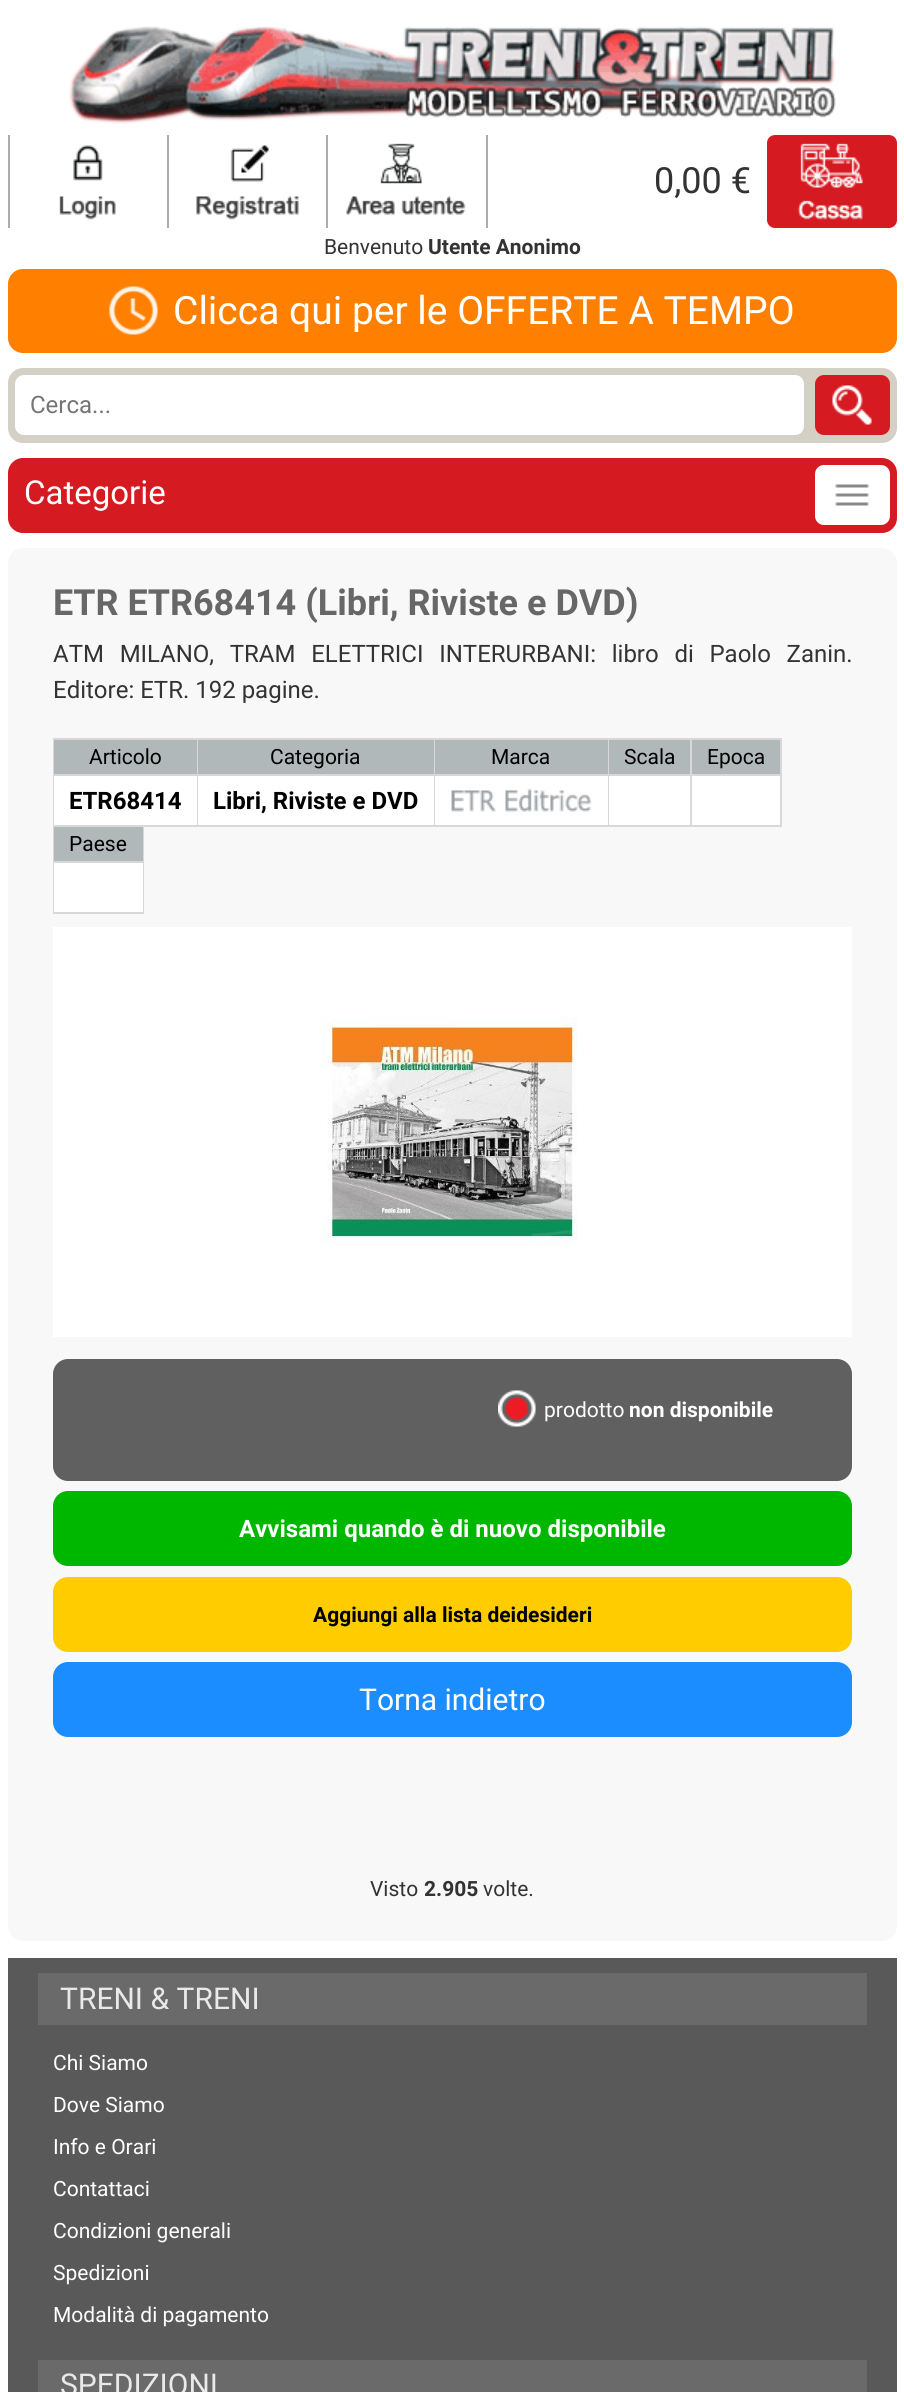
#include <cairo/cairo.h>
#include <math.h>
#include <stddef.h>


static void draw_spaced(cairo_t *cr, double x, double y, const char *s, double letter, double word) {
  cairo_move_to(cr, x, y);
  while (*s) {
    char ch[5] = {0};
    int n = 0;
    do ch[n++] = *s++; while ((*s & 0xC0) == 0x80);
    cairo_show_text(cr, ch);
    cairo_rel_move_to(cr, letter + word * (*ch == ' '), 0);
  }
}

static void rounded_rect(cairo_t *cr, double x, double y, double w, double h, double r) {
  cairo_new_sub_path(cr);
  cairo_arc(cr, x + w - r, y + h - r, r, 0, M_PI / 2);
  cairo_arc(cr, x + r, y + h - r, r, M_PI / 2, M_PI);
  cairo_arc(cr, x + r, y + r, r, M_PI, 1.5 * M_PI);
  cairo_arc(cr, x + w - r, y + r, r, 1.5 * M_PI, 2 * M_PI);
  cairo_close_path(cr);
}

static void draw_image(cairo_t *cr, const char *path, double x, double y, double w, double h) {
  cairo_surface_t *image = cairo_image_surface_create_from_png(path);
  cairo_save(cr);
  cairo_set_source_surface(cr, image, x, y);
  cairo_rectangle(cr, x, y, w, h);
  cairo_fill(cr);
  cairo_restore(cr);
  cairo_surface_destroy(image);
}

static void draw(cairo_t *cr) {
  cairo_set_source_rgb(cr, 1, 1, 1);
  cairo_paint(cr);
  draw_image(cr, "images/1.png", 69, 26, 767, 98);
  cairo_set_source_rgb(cr, 172 / 255.0, 172 / 255.0, 172 / 255.0);
  cairo_rectangle(cr, 167, 135, 2, 93);
  cairo_fill(cr);
  cairo_rectangle(cr, 8, 135, 2, 93);
  cairo_fill(cr);
  draw_image(cr, "images/2.png", 59, 145, 57, 75);
  cairo_rectangle(cr, 326, 135, 2, 93);
  cairo_fill(cr);
  draw_image(cr, "images/3.png", 196, 145, 103, 75);
  cairo_rectangle(cr, 486, 135, 2, 93);
  cairo_fill(cr);
  draw_image(cr, "images/4.png", 346, 143, 120, 72);
  cairo_set_source_rgb(cr, 214 / 255.0, 26 / 255.0, 33 / 255.0);
  rounded_rect(cr, 767, 135, 130, 93, 8);
  cairo_fill(cr);
  draw_image(cr, "images/5.png", 797, 143, 66, 77);
  cairo_set_source_rgb(cr, 1, 128 / 255.0, 0);
  rounded_rect(cr, 8, 269, 889, 84, 15);
  cairo_fill(cr);
  draw_image(cr, "images/6.png", 109, 286, 49, 49);
  cairo_set_source_rgb(cr, 213 / 255.0, 208 / 255.0, 197 / 255.0);
  rounded_rect(cr, 8, 368, 889, 75, 15);
  cairo_fill(cr);
  cairo_set_source_rgb(cr, 1, 1, 1);
  rounded_rect(cr, 15, 375, 789, 60, 9);
  cairo_fill(cr);
  cairo_set_source_rgb(cr, 214 / 255.0, 26 / 255.0, 33 / 255.0);
  rounded_rect(cr, 815, 375, 75, 60, 9);
  cairo_fill(cr);
  draw_image(cr, "images/7.png", 832, 385, 40, 40);
  rounded_rect(cr, 8, 458, 889, 75, 15);
  cairo_fill(cr);
  cairo_set_source_rgb(cr, 1, 1, 1);
  rounded_rect(cr, 815, 465, 75, 60, 9);
  cairo_fill(cr);
  draw_image(cr, "images/8.png", 835, 484, 34, 22);
  cairo_set_source_rgb(cr, 248 / 255.0, 248 / 255.0, 248 / 255.0);
  rounded_rect(cr, 8, 548, 889, 1393, 15);
  cairo_fill(cr);
  cairo_rectangle(cr, 54, 739, 143, 87);
  cairo_set_source_rgb(cr, 216 / 255.0, 216 / 255.0, 216 / 255.0);
  cairo_stroke(cr);
  cairo_set_source_rgb(cr, 177 / 255.0, 184 / 255.0, 185 / 255.0);
  cairo_rectangle(cr, 54, 740, 143, 34);
  cairo_fill(cr);
  cairo_set_source_rgb(cr, 1, 1, 1);
  cairo_rectangle(cr, 54, 776, 143, 49);
  cairo_fill(cr);
  cairo_set_source_rgb(cr, 216 / 255.0, 216 / 255.0, 216 / 255.0);
  cairo_rectangle(cr, 54, 774, 143, 2);
  cairo_fill(cr);
  cairo_rectangle(cr, 198, 739, 236, 87);
  cairo_stroke(cr);
  cairo_set_source_rgb(cr, 177 / 255.0, 184 / 255.0, 185 / 255.0);
  cairo_rectangle(cr, 198, 740, 236, 34);
  cairo_fill(cr);
  cairo_set_source_rgb(cr, 1, 1, 1);
  cairo_rectangle(cr, 198, 776, 236, 49);
  cairo_fill(cr);
  cairo_set_source_rgb(cr, 216 / 255.0, 216 / 255.0, 216 / 255.0);
  cairo_rectangle(cr, 198, 774, 236, 2);
  cairo_fill(cr);
  cairo_rectangle(cr, 435, 739, 173, 87);
  cairo_stroke(cr);
  cairo_set_source_rgb(cr, 177 / 255.0, 184 / 255.0, 185 / 255.0);
  cairo_rectangle(cr, 435, 740, 173, 34);
  cairo_fill(cr);
  cairo_set_source_rgb(cr, 1, 1, 1);
  cairo_rectangle(cr, 435, 776, 173, 49);
  cairo_fill(cr);
  cairo_set_source_rgb(cr, 216 / 255.0, 216 / 255.0, 216 / 255.0);
  cairo_rectangle(cr, 435, 774, 173, 2);
  cairo_fill(cr);
  draw_image(cr, "images/9.png", 451, 788, 141, 24);
  cairo_rectangle(cr, 609, 739, 82, 87);
  cairo_stroke(cr);
  cairo_set_source_rgb(cr, 177 / 255.0, 184 / 255.0, 185 / 255.0);
  cairo_rectangle(cr, 609, 740, 81, 34);
  cairo_fill(cr);
  cairo_set_source_rgb(cr, 1, 1, 1);
  cairo_rectangle(cr, 609, 776, 81, 49);
  cairo_fill(cr);
  cairo_set_source_rgb(cr, 216 / 255.0, 216 / 255.0, 216 / 255.0);
  cairo_rectangle(cr, 609, 774, 81, 2);
  cairo_fill(cr);
  cairo_rectangle(cr, 691, 739, 90, 87);
  cairo_stroke(cr);
  cairo_set_source_rgb(cr, 177 / 255.0, 184 / 255.0, 185 / 255.0);
  cairo_rectangle(cr, 692, 740, 88, 34);
  cairo_fill(cr);
  cairo_set_source_rgb(cr, 1, 1, 1);
  cairo_rectangle(cr, 692, 776, 88, 49);
  cairo_fill(cr);
  cairo_set_source_rgb(cr, 216 / 255.0, 216 / 255.0, 216 / 255.0);
  cairo_rectangle(cr, 692, 774, 88, 2);
  cairo_fill(cr);
  cairo_rectangle(cr, 54, 826, 89, 87);
  cairo_stroke(cr);
  cairo_set_source_rgb(cr, 177 / 255.0, 184 / 255.0, 185 / 255.0);
  cairo_rectangle(cr, 54, 827, 89, 34);
  cairo_fill(cr);
  cairo_set_source_rgb(cr, 1, 1, 1);
  cairo_rectangle(cr, 54, 863, 89, 49);
  cairo_fill(cr);
  cairo_set_source_rgb(cr, 216 / 255.0, 216 / 255.0, 216 / 255.0);
  cairo_rectangle(cr, 54, 861, 89, 2);
  cairo_fill(cr);
  cairo_set_source_rgb(cr, 1, 1, 1);
  cairo_rectangle(cr, 53, 927, 799, 410);
  cairo_fill(cr);
  draw_image(cr, "images/10.png", 321, 1016, 256, 230);
  cairo_set_source_rgb(cr, 96 / 255.0, 96 / 255.0, 96 / 255.0);
  rounded_rect(cr, 53, 1359, 799, 122, 15);
  cairo_fill(cr);
  draw_image(cr, "images/11.png", 498, 1390, 38, 37);
  cairo_set_source_rgb(cr, 0, 183 / 255.0, 0);
  rounded_rect(cr, 53, 1491, 799, 75, 15);
  cairo_fill(cr);
  cairo_set_source_rgb(cr, 1, 204 / 255.0, 0);
  rounded_rect(cr, 53, 1577, 799, 75, 15);
  cairo_fill(cr);
  cairo_set_source_rgb(cr, 28 / 255.0, 141 / 255.0, 1);
  rounded_rect(cr, 53, 1662, 799, 75, 15);
  cairo_fill(cr);
  cairo_set_source_rgb(cr, 89 / 255.0, 89 / 255.0, 89 / 255.0);
  cairo_rectangle(cr, 8, 1958, 889, 434);
  cairo_fill(cr);
  cairo_set_source_rgb(cr, 106 / 255.0, 106 / 255.0, 106 / 255.0);
  cairo_rectangle(cr, 38, 1973, 829, 52);
  cairo_fill(cr);
  cairo_rectangle(cr, 38, 2360, 829, 32);
  cairo_fill(cr);
  cairo_select_font_face(cr, "Roboto", CAIRO_FONT_SLANT_NORMAL, CAIRO_FONT_WEIGHT_NORMAL);
  cairo_set_font_size(cr, 36);
  cairo_set_source_rgb(cr, 51 / 255.0, 51 / 255.0, 51 / 255.0);
  cairo_move_to(cr, 654, 193);
  cairo_show_text(cr, "0,00 €");
  cairo_set_font_size(cr, 21);
  cairo_move_to(cr, 324, 254);
  cairo_show_text(cr, "Benvenuto");
  cairo_select_font_face(cr, "Roboto", CAIRO_FONT_SLANT_NORMAL, CAIRO_FONT_WEIGHT_BOLD);
  cairo_move_to(cr, 428, 254);
  cairo_show_text(cr, "Utente Anonimo");
  cairo_select_font_face(cr, "Roboto", CAIRO_FONT_SLANT_NORMAL, CAIRO_FONT_WEIGHT_NORMAL);
  cairo_set_font_size(cr, 39);
  cairo_set_source_rgb(cr, 1, 1, 1);
  cairo_move_to(cr, 173, 324);
  cairo_show_text(cr, "Clicca qui per le OFFERTE A TEMPO");
  cairo_set_font_size(cr, 24);
  cairo_set_source_rgb(cr, 117 / 255.0, 117 / 255.0, 117 / 255.0);
  cairo_move_to(cr, 30, 413);
  cairo_show_text(cr, "Cerca...");
  cairo_set_font_size(cr, 33);
  cairo_set_source_rgb(cr, 1, 1, 1);
  cairo_move_to(cr, 24, 504);
  cairo_show_text(cr, "Categorie");
  cairo_select_font_face(cr, "Roboto", CAIRO_FONT_SLANT_NORMAL, CAIRO_FONT_WEIGHT_BOLD);
  cairo_set_font_size(cr, 36);
  cairo_set_source_rgb(cr, 103 / 255.0, 103 / 255.0, 103 / 255.0);
  cairo_move_to(cr, 53, 615);
  cairo_show_text(cr, "ETR ETR68414 (Libri, Riviste e DVD)");
  cairo_select_font_face(cr, "Roboto", CAIRO_FONT_SLANT_NORMAL, CAIRO_FONT_WEIGHT_NORMAL);
  cairo_set_font_size(cr, 24);
  cairo_set_source_rgb(cr, 51 / 255.0, 51 / 255.0, 51 / 255.0);
  draw_spaced(cr, 53, 662, "ATM MILANO, TRAM ELETTRICI INTERURBANI: libro di Paolo Zanin.", 0, 9.75);
  cairo_move_to(cr, 53, 698);
  cairo_show_text(cr, "Editore: ETR. 192 pagine.");
  cairo_set_font_size(cr, 21);
  cairo_set_source_rgb(cr, 0, 0, 0);
  cairo_move_to(cr, 89, 764);
  cairo_show_text(cr, "Articolo");
  cairo_select_font_face(cr, "Roboto", CAIRO_FONT_SLANT_NORMAL, CAIRO_FONT_WEIGHT_BOLD);
  cairo_set_font_size(cr, 24);
  cairo_move_to(cr, 69, 809);
  cairo_show_text(cr, "ETR68414");
  cairo_select_font_face(cr, "Roboto", CAIRO_FONT_SLANT_NORMAL, CAIRO_FONT_WEIGHT_NORMAL);
  cairo_set_font_size(cr, 21);
  cairo_move_to(cr, 270, 764);
  cairo_show_text(cr, "Categoria");
  cairo_select_font_face(cr, "Roboto", CAIRO_FONT_SLANT_NORMAL, CAIRO_FONT_WEIGHT_BOLD);
  cairo_set_font_size(cr, 24);
  cairo_move_to(cr, 213, 809);
  cairo_show_text(cr, "Libri, Riviste e DVD");
  cairo_select_font_face(cr, "Roboto", CAIRO_FONT_SLANT_NORMAL, CAIRO_FONT_WEIGHT_NORMAL);
  cairo_set_font_size(cr, 21);
  cairo_move_to(cr, 491, 764);
  cairo_show_text(cr, "Marca");
  cairo_move_to(cr, 624, 764);
  cairo_show_text(cr, "Scala");
  cairo_move_to(cr, 707, 764);
  cairo_show_text(cr, "Epoca");
  cairo_move_to(cr, 69, 851);
  cairo_show_text(cr, "Paese");
  cairo_set_source_rgb(cr, 1, 1, 1);
  cairo_move_to(cr, 544, 1417);
  cairo_show_text(cr, "prodotto");
  cairo_select_font_face(cr, "Roboto", CAIRO_FONT_SLANT_NORMAL, CAIRO_FONT_WEIGHT_BOLD);
  cairo_move_to(cr, 629, 1417);
  cairo_show_text(cr, "non disponibile");
  cairo_set_font_size(cr, 24);
  cairo_move_to(cr, 239, 1537);
  cairo_show_text(cr, "Avvisami quando è di nuovo disponibile");
  cairo_set_font_size(cr, 21);
  cairo_set_source_rgb(cr, 0, 0, 0);
  cairo_move_to(cr, 313, 1622);
  cairo_show_text(cr, "Aggiungi alla lista deidesideri");
  cairo_select_font_face(cr, "Roboto", CAIRO_FONT_SLANT_NORMAL, CAIRO_FONT_WEIGHT_NORMAL);
  cairo_set_font_size(cr, 30);
  cairo_set_source_rgb(cr, 1, 1, 1);
  cairo_move_to(cr, 359, 1710);
  cairo_show_text(cr, "Torna indietro");
  cairo_set_font_size(cr, 21);
  cairo_set_source_rgb(cr, 51 / 255.0, 51 / 255.0, 51 / 255.0);
  cairo_move_to(cr, 370, 1896);
  cairo_show_text(cr, "Visto");
  cairo_select_font_face(cr, "Roboto", CAIRO_FONT_SLANT_NORMAL, CAIRO_FONT_WEIGHT_BOLD);
  cairo_move_to(cr, 424, 1896);
  cairo_show_text(cr, "2.905");
  cairo_select_font_face(cr, "Roboto", CAIRO_FONT_SLANT_NORMAL, CAIRO_FONT_WEIGHT_NORMAL);
  cairo_move_to(cr, 483, 1896);
  cairo_show_text(cr, "volte.");
  cairo_set_font_size(cr, 30);
  cairo_set_source_rgb(cr, 233 / 255.0, 233 / 255.0, 233 / 255.0);
  cairo_move_to(cr, 60, 2009);
  cairo_show_text(cr, "TRENI & TRENI");
  cairo_set_font_size(cr, 21);
  cairo_set_source_rgb(cr, 1, 1, 1);
  cairo_move_to(cr, 53, 2070);
  cairo_show_text(cr, "Chi Siamo");
  cairo_move_to(cr, 53, 2112);
  cairo_show_text(cr, "Dove Siamo");
  cairo_move_to(cr, 53, 2154);
  cairo_show_text(cr, "Info e Orari");
  cairo_move_to(cr, 53, 2196);
  cairo_show_text(cr, "Contattaci");
  cairo_move_to(cr, 53, 2238);
  cairo_show_text(cr, "Condizioni generali");
  cairo_move_to(cr, 53, 2280);
  cairo_show_text(cr, "Spedizioni");
  cairo_move_to(cr, 53, 2322);
  cairo_show_text(cr, "Modalità di pagamento");
  cairo_set_font_size(cr, 30);
  cairo_set_source_rgb(cr, 233 / 255.0, 233 / 255.0, 233 / 255.0);
  cairo_move_to(cr, 60, 2395);
  cairo_show_text(cr, "SPEDIZIONI");
}

int main(void) {
  cairo_surface_t *surface = cairo_image_surface_create(CAIRO_FORMAT_RGB24, 904, 2392);
  cairo_t *cr = cairo_create(surface);
  cairo_font_options_t *options = cairo_font_options_create();
  cairo_font_options_set_hint_metrics(options, CAIRO_HINT_METRICS_OFF);
  cairo_font_options_set_hint_style(options, CAIRO_HINT_STYLE_NONE);
  cairo_set_font_options(cr, options);
  cairo_set_miter_limit(cr, 4);
  draw(cr);
  cairo_surface_write_to_png(surface, "out.png");
  cairo_font_options_destroy(options);
  cairo_destroy(cr);
  cairo_surface_destroy(surface);
  return 0;
}
